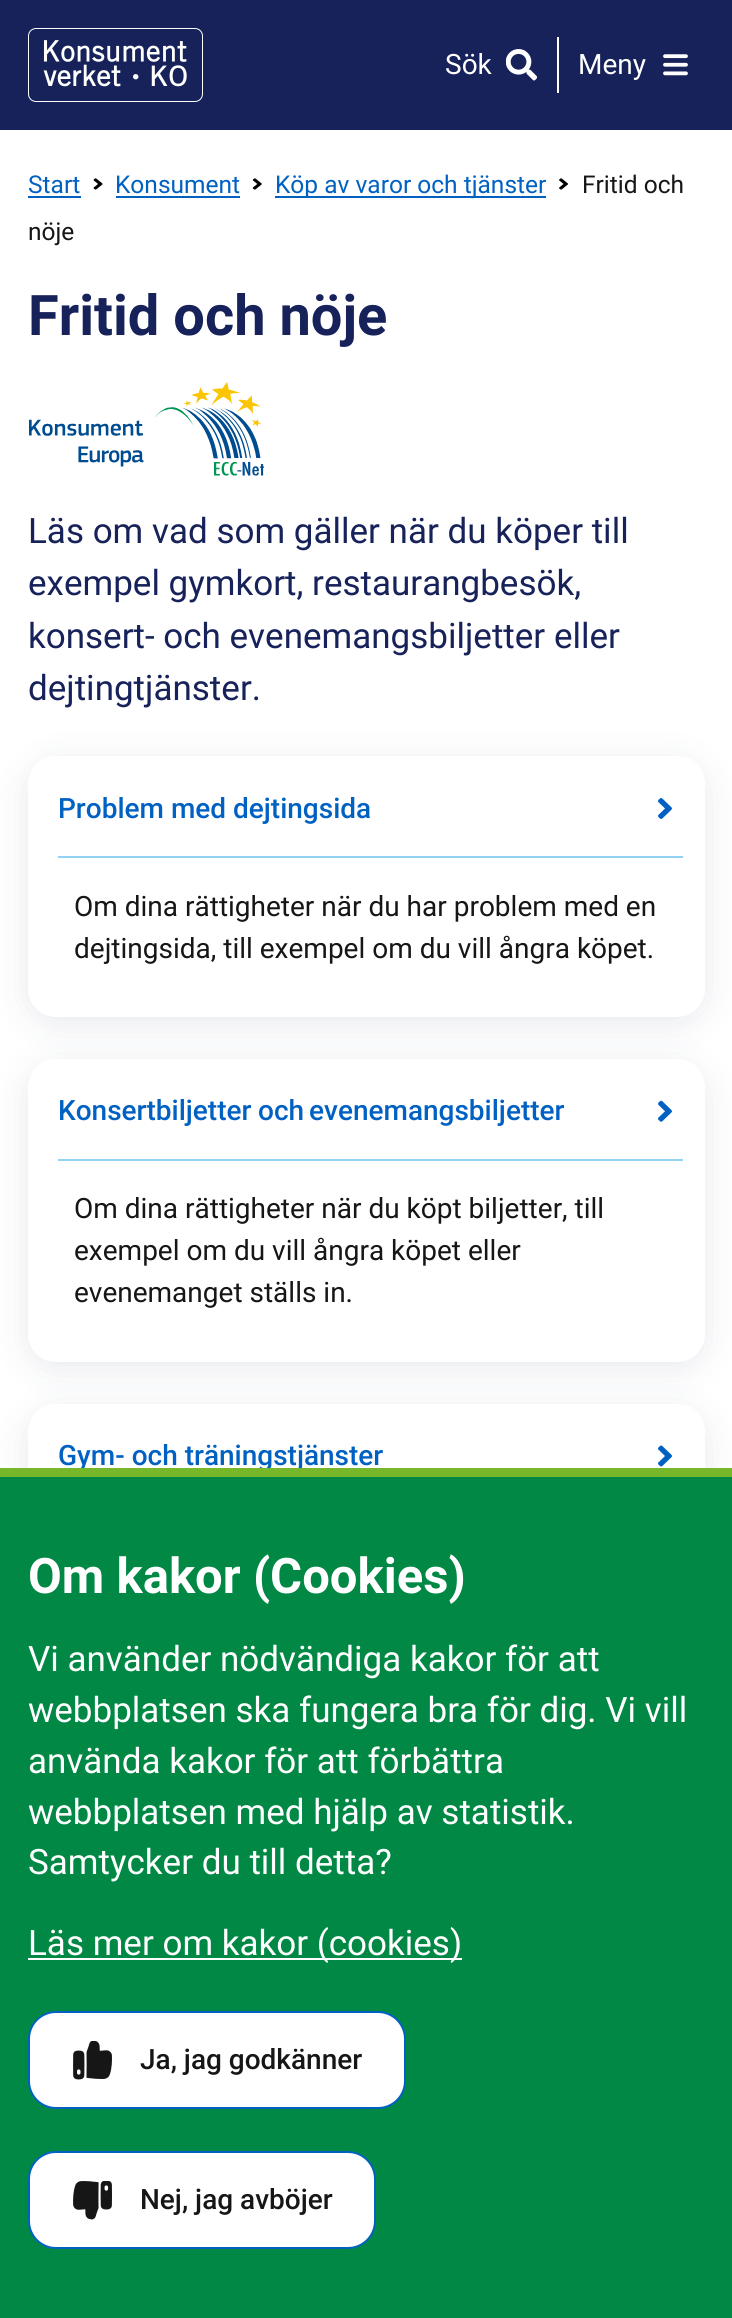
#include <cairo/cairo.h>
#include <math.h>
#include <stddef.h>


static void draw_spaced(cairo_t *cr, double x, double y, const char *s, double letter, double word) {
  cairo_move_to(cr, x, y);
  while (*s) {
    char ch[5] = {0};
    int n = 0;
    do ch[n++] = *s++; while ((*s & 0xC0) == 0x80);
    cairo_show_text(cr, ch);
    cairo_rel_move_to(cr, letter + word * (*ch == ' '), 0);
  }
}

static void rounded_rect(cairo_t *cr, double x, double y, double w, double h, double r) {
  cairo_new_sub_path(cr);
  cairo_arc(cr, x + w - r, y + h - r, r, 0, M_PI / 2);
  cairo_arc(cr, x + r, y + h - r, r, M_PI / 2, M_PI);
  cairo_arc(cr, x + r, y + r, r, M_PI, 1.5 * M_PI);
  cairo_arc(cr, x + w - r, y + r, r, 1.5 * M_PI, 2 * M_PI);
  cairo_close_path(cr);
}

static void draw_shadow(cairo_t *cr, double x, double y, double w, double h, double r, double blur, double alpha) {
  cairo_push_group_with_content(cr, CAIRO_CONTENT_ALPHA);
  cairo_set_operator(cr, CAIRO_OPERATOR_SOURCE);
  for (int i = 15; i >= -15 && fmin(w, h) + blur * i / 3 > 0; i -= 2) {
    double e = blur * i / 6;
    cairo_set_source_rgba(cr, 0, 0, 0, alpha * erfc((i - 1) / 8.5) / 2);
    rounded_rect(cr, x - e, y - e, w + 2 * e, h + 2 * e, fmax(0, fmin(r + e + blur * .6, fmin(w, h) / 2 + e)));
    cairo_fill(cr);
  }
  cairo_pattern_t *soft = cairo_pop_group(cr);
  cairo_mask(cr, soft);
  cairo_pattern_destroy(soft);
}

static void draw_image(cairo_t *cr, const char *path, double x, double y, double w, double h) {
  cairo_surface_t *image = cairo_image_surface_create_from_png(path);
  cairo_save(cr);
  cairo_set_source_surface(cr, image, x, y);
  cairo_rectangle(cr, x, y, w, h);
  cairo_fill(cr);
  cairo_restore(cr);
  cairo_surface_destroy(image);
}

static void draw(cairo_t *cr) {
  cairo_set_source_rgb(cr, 1, 1, 1);
  cairo_paint(cr);
  cairo_set_source_rgb(cr, 22 / 255.0, 34 / 255.0, 89 / 255.0);
  cairo_rectangle(cr, 0, 0, 732, 130);
  cairo_fill(cr);
  draw_image(cr, "images/1.png", 28, 28, 175, 74);
  draw_image(cr, "images/2.png", 506, 49, 31, 32);
  cairo_set_source_rgb(cr, 1, 1, 1);
  cairo_rectangle(cr, 557, 37, 2, 56);
  cairo_fill(cr);
  draw_image(cr, "images/3.png", 663, 54, 25, 22);
  cairo_set_source_rgb(cr, 0, 97 / 255.0, 194 / 255.0);
  cairo_rectangle(cr, 28, 196, 53, 2);
  cairo_fill(cr);
  draw_image(cr, "images/4.png", 93, 178, 10, 12);
  cairo_rectangle(cr, 116, 196, 124, 2);
  cairo_fill(cr);
  draw_image(cr, "images/5.png", 252, 178, 10, 12);
  cairo_rectangle(cr, 275, 196, 271, 2);
  cairo_fill(cr);
  draw_image(cr, "images/6.png", 559, 178, 9, 12);
  draw_image(cr, "images/7.png", 29, 382, 235, 94);
  cairo_set_source_rgb(cr, 22 / 255.0, 34 / 255.0, 89 / 255.0);
  draw_shadow(cr, 28, 763, 677, 261, 28, 17.5, 0.1);
  cairo_set_source_rgb(cr, 1, 1, 1);
  rounded_rect(cr, 29, 757, 675, 259, 27);
  cairo_fill_preserve(cr);
  cairo_stroke(cr);
  draw_image(cr, "images/8.png", 658, 798, 14, 21);
  cairo_set_source_rgb(cr, 146 / 255.0, 210 / 255.0, 244 / 255.0);
  cairo_rectangle(cr, 58, 856, 625, 2);
  cairo_fill(cr);
  cairo_set_source_rgb(cr, 22 / 255.0, 34 / 255.0, 89 / 255.0);
  draw_shadow(cr, 28, 1066, 677, 303, 28, 17.5, 0.1);
  cairo_set_source_rgb(cr, 1, 1, 1);
  rounded_rect(cr, 29, 1060, 675, 301, 27);
  cairo_fill_preserve(cr);
  cairo_stroke(cr);
  draw_image(cr, "images/9.png", 658, 1100, 14, 22);
  cairo_set_source_rgb(cr, 146 / 255.0, 210 / 255.0, 244 / 255.0);
  cairo_rectangle(cr, 58, 1159, 625, 2);
  cairo_fill(cr);
  cairo_set_source_rgb(cr, 22 / 255.0, 34 / 255.0, 89 / 255.0);
  draw_shadow(cr, 28, 1411, 677, 302, 28, 17.5, 0.1);
  cairo_set_source_rgb(cr, 1, 1, 1);
  rounded_rect(cr, 28, 1404, 677, 302, 28);
  cairo_fill(cr);
  draw_image(cr, "images/10.png", 658, 1445, 14, 22);
  cairo_set_source_rgb(cr, 0, 136 / 255.0, 68 / 255.0);
  cairo_rectangle(cr, 0, 1477, 732, 841);
  cairo_fill(cr);
  cairo_set_source_rgb(cr, 1, 1, 1);
  cairo_rectangle(cr, 28, 1958, 434, 2);
  cairo_fill(cr);
  rounded_rect(cr, 29, 2012, 376, 96, 27);
  cairo_fill_preserve(cr);
  cairo_set_source_rgb(cr, 0, 97 / 255.0, 194 / 255.0);
  cairo_stroke(cr);
  draw_image(cr, "images/11.png", 73, 2041, 39, 39);
  cairo_set_source_rgb(cr, 1, 1, 1);
  rounded_rect(cr, 29, 2152, 346, 96, 27);
  cairo_fill_preserve(cr);
  cairo_set_source_rgb(cr, 0, 97 / 255.0, 194 / 255.0);
  cairo_stroke(cr);
  draw_image(cr, "images/12.png", 73, 2181, 39, 39);
  cairo_select_font_face(cr, "Roboto", CAIRO_FONT_SLANT_NORMAL, CAIRO_FONT_WEIGHT_NORMAL);
  cairo_set_font_size(cr, 28);
  cairo_set_source_rgb(cr, 1, 1, 1);
  cairo_move_to(cr, 445, 74);
  cairo_show_text(cr, "Sök");
  cairo_move_to(cr, 578, 74);
  cairo_show_text(cr, "Meny");
  cairo_set_font_size(cr, 24.5);
  cairo_set_source_rgb(cr, 0, 97 / 255.0, 194 / 255.0);
  cairo_move_to(cr, 28, 193);
  cairo_show_text(cr, "Start");
  cairo_move_to(cr, 115, 193);
  cairo_show_text(cr, "Konsument");
  cairo_move_to(cr, 275, 193);
  cairo_show_text(cr, "Köp av varor och tjänster");
  cairo_set_source_rgb(cr, 22 / 255.0, 22 / 255.0, 22 / 255.0);
  cairo_move_to(cr, 582, 193);
  cairo_show_text(cr, "Fritid och");
  cairo_move_to(cr, 28, 240);
  cairo_show_text(cr, "nöje");
  cairo_select_font_face(cr, "Roboto", CAIRO_FONT_SLANT_NORMAL, CAIRO_FONT_WEIGHT_BOLD);
  cairo_set_font_size(cr, 56);
  cairo_set_source_rgb(cr, 22 / 255.0, 34 / 255.0, 89 / 255.0);
  cairo_move_to(cr, 28, 335);
  cairo_show_text(cr, "Fritid och nöje");
  cairo_select_font_face(cr, "Roboto", CAIRO_FONT_SLANT_NORMAL, CAIRO_FONT_WEIGHT_NORMAL);
  cairo_set_font_size(cr, 35);
  cairo_move_to(cr, 28, 543);
  cairo_show_text(cr, "Läs om vad som gäller när du köper till");
  cairo_move_to(cr, 28, 595);
  cairo_show_text(cr, "exempel gymkort, restaurangbesök,");
  cairo_move_to(cr, 28, 648);
  cairo_show_text(cr, "konsert- och evenemangsbiljetter eller");
  cairo_move_to(cr, 28, 700);
  cairo_show_text(cr, "dejtingtjänster.");
  cairo_select_font_face(cr, "Roboto Medium", CAIRO_FONT_SLANT_NORMAL, CAIRO_FONT_WEIGHT_NORMAL);
  cairo_set_font_size(cr, 28);
  cairo_set_source_rgb(cr, 0, 97 / 255.0, 194 / 255.0);
  cairo_move_to(cr, 58, 818);
  cairo_show_text(cr, "Problem med dejtingsida");
  cairo_select_font_face(cr, "Roboto", CAIRO_FONT_SLANT_NORMAL, CAIRO_FONT_WEIGHT_NORMAL);
  cairo_set_source_rgb(cr, 22 / 255.0, 22 / 255.0, 22 / 255.0);
  cairo_move_to(cr, 74, 916);
  cairo_show_text(cr, "Om dina rättigheter när du har problem med en");
  cairo_move_to(cr, 74, 958);
  cairo_show_text(cr, "dejtingsida, till exempel om du vill ångra köpet.");
  cairo_select_font_face(cr, "Roboto Medium", CAIRO_FONT_SLANT_NORMAL, CAIRO_FONT_WEIGHT_NORMAL);
  cairo_set_source_rgb(cr, 0, 97 / 255.0, 194 / 255.0);
  cairo_move_to(cr, 58, 1120);
  cairo_show_text(cr, "Konsertbiljetter");
  draw_spaced(cr, 258, 1120, "och evenemangsbiljetter", 0, -2);
  cairo_select_font_face(cr, "Roboto", CAIRO_FONT_SLANT_NORMAL, CAIRO_FONT_WEIGHT_NORMAL);
  cairo_set_source_rgb(cr, 22 / 255.0, 22 / 255.0, 22 / 255.0);
  cairo_move_to(cr, 74, 1218);
  cairo_show_text(cr, "Om dina rättigheter när du köpt biljetter, till");
  cairo_move_to(cr, 74, 1260);
  cairo_show_text(cr, "exempel om du vill ångra köpet eller");
  cairo_move_to(cr, 74, 1302);
  cairo_show_text(cr, "evenemanget ställs in.");
  cairo_select_font_face(cr, "Roboto Medium", CAIRO_FONT_SLANT_NORMAL, CAIRO_FONT_WEIGHT_NORMAL);
  cairo_set_source_rgb(cr, 0, 97 / 255.0, 194 / 255.0);
  cairo_move_to(cr, 58, 1465);
  cairo_show_text(cr, "Gym- och träningstjänster");
  cairo_set_source_rgb(cr, 118 / 255.0, 184 / 255.0, 42 / 255.0);
  cairo_rectangle(cr, 0, 1468, 732, 9);
  cairo_fill(cr);
  cairo_select_font_face(cr, "Roboto", CAIRO_FONT_SLANT_NORMAL, CAIRO_FONT_WEIGHT_BOLD);
  cairo_set_font_size(cr, 49);
  cairo_set_source_rgb(cr, 1, 1, 1);
  cairo_move_to(cr, 28, 1593);
  cairo_show_text(cr, "Om kakor (Cookies)");
  cairo_select_font_face(cr, "Roboto", CAIRO_FONT_SLANT_NORMAL, CAIRO_FONT_WEIGHT_NORMAL);
  cairo_set_font_size(cr, 35);
  cairo_move_to(cr, 28, 1671);
  cairo_show_text(cr, "Vi använder nödvändiga kakor för att");
  cairo_move_to(cr, 28, 1722);
  cairo_show_text(cr, "webbplatsen ska fungera bra för dig. Vi vill");
  cairo_move_to(cr, 28, 1773);
  cairo_show_text(cr, "använda kakor för att förbättra");
  cairo_move_to(cr, 28, 1824);
  cairo_show_text(cr, "webbplatsen med hjälp av statistik.");
  cairo_move_to(cr, 28, 1874);
  cairo_show_text(cr, "Samtycker du till detta?");
  cairo_move_to(cr, 28, 1955);
  cairo_show_text(cr, "Läs mer om kakor (cookies)");
  cairo_select_font_face(cr, "Roboto Medium", CAIRO_FONT_SLANT_NORMAL, CAIRO_FONT_WEIGHT_NORMAL);
  cairo_set_font_size(cr, 28);
  cairo_set_source_rgb(cr, 22 / 255.0, 22 / 255.0, 22 / 255.0);
  cairo_move_to(cr, 140, 2069);
  cairo_show_text(cr, "Ja, jag godkänner");
  cairo_move_to(cr, 140, 2209);
  cairo_show_text(cr, "Nej, jag avböjer");
}

int main(void) {
  cairo_surface_t *surface = cairo_image_surface_create(CAIRO_FORMAT_RGB24, 732, 2318);
  cairo_t *cr = cairo_create(surface);
  cairo_font_options_t *options = cairo_font_options_create();
  cairo_font_options_set_hint_metrics(options, CAIRO_HINT_METRICS_OFF);
  cairo_font_options_set_hint_style(options, CAIRO_HINT_STYLE_NONE);
  cairo_set_font_options(cr, options);
  cairo_set_miter_limit(cr, 4);
  draw(cr);
  cairo_surface_write_to_png(surface, "out.png");
  cairo_font_options_destroy(options);
  cairo_destroy(cr);
  cairo_surface_destroy(surface);
  return 0;
}
